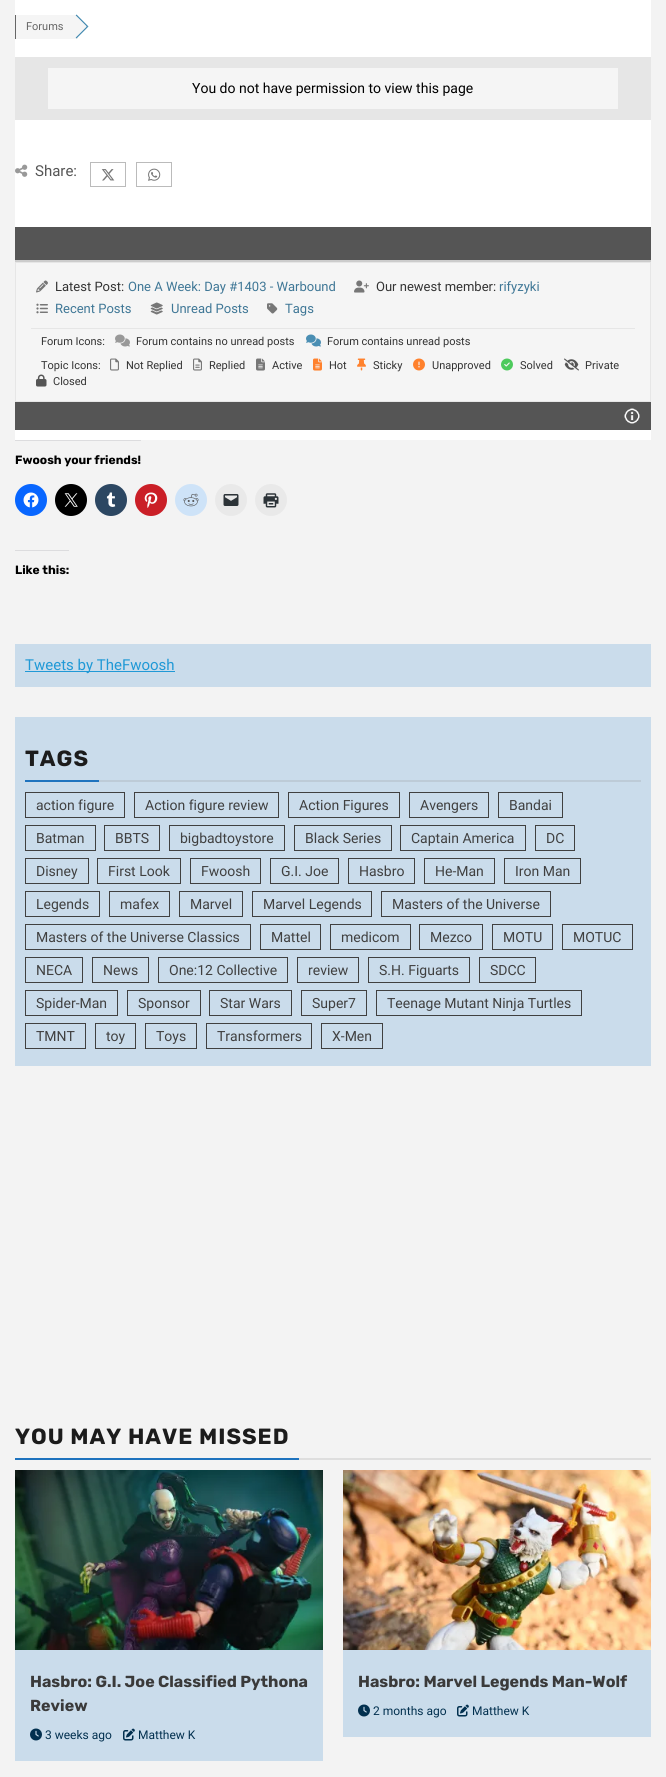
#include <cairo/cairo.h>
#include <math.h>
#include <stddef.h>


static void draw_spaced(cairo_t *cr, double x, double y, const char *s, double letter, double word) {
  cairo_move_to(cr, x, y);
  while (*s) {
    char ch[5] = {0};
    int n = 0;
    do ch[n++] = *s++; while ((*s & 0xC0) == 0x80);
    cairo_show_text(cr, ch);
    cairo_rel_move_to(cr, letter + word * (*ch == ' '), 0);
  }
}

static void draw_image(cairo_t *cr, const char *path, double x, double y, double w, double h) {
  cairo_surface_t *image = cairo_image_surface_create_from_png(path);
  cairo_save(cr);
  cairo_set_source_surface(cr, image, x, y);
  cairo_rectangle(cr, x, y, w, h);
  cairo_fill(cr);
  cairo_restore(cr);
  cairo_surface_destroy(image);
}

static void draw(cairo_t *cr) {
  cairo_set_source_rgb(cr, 243 / 255.0, 243 / 255.0, 243 / 255.0);
  cairo_paint(cr);
  cairo_set_source_rgb(cr, 1, 1, 1);
  cairo_rectangle(cr, 15, 0, 636, 440);
  cairo_fill(cr);
  cairo_set_source_rgb(cr, 245 / 255.0, 245 / 255.0, 245 / 255.0);
  cairo_rectangle(cr, 16, 15, 62, 24);
  cairo_fill(cr);
  cairo_set_source_rgb(cr, 102 / 255.0, 102 / 255.0, 102 / 255.0);
  cairo_rectangle(cr, 15, 15, 1, 24);
  cairo_fill(cr);
  cairo_set_source_rgb(cr, 74 / 255.0, 142 / 255.0, 179 / 255.0);
  cairo_new_path(cr);
  cairo_move_to(cr, 76.5, 14.5);
  cairo_line_to(cr, 75.5, 15.5);
  cairo_line_to(cr, 86.5, 26.5);
  cairo_line_to(cr, 75.5, 37.5);
  cairo_line_to(cr, 76.5, 38.5);
  cairo_line_to(cr, 88.5, 26.5);
  cairo_close_path(cr);
  cairo_fill(cr);
  cairo_set_source_rgb(cr, 230 / 255.0, 230 / 255.0, 230 / 255.0);
  cairo_rectangle(cr, 15, 57, 636, 63);
  cairo_fill(cr);
  cairo_set_source_rgb(cr, 245 / 255.0, 245 / 255.0, 245 / 255.0);
  cairo_rectangle(cr, 48, 68, 570, 41);
  cairo_fill(cr);
  draw_image(cr, "images/1.png", 15, 164, 13, 13);
  cairo_rectangle(cr, 90.5, 162.5, 35, 24);
  cairo_set_source_rgb(cr, 187 / 255.0, 187 / 255.0, 187 / 255.0);
  cairo_set_line_width(cr, 1);
  cairo_stroke(cr);
  draw_image(cr, "images/2.png", 101, 169, 14, 12);
  cairo_rectangle(cr, 136.5, 162.5, 35, 24);
  cairo_stroke(cr);
  draw_image(cr, "images/3.png", 148, 168, 13, 13);
  cairo_set_source_rgb(cr, 85 / 255.0, 85 / 255.0, 85 / 255.0);
  cairo_rectangle(cr, 15, 227, 636, 33);
  cairo_fill(cr);
  cairo_set_source_rgb(cr, 204 / 255.0, 204 / 255.0, 204 / 255.0);
  cairo_rectangle(cr, 15, 260, 636, 2);
  cairo_fill(cr);
  cairo_set_source_rgb(cr, 245 / 255.0, 245 / 255.0, 245 / 255.0);
  cairo_rectangle(cr, 15.5, 262.5, 635, 139);
  cairo_fill_preserve(cr);
  cairo_set_source_rgb(cr, 230 / 255.0, 230 / 255.0, 230 / 255.0);
  cairo_stroke(cr);
  draw_image(cr, "images/4.png", 36, 280, 12, 13);
  draw_image(cr, "images/5.png", 354, 280, 15, 13);
  draw_image(cr, "images/6.png", 36, 303, 12, 11);
  draw_image(cr, "images/7.png", 150, 302, 13, 13);
  draw_image(cr, "images/8.png", 267, 303, 11, 11);
  cairo_rectangle(cr, 31, 328, 604, 1);
  cairo_fill(cr);
  draw_image(cr, "images/9.png", 115, 334, 15, 13);
  draw_image(cr, "images/10.png", 306, 334, 15, 13);
  draw_image(cr, "images/11.png", 110, 358, 9, 13);
  draw_image(cr, "images/12.png", 193, 358, 9, 13);
  draw_image(cr, "images/13.png", 256, 358, 9, 13);
  draw_image(cr, "images/14.png", 313, 358, 9, 13);
  draw_image(cr, "images/15.png", 357, 358, 9, 13);
  draw_image(cr, "images/16.png", 413, 358, 12, 13);
  draw_image(cr, "images/17.png", 501, 358, 12, 13);
  draw_image(cr, "images/18.png", 564, 358, 15, 13);
  draw_image(cr, "images/19.png", 36, 374, 11, 13);
  cairo_set_source_rgb(cr, 85 / 255.0, 85 / 255.0, 85 / 255.0);
  cairo_rectangle(cr, 15, 402, 636, 28);
  cairo_fill(cr);
  draw_image(cr, "images/20.png", 624, 408, 16, 16);
  cairo_set_source_rgb(cr, 220 / 255.0, 220 / 255.0, 222 / 255.0);
  cairo_rectangle(cr, 15, 440, 126, 1);
  cairo_fill(cr);
  cairo_set_source_rgb(cr, 8 / 255.0, 102 / 255.0, 1);
  cairo_arc(cr, 31, 500, 16, 0, 2 * M_PI);
  cairo_fill(cr);
  draw_image(cr, "images/21.png", 23, 492, 16, 16);
  cairo_set_source_rgb(cr, 0, 0, 0);
  cairo_arc(cr, 71, 500, 16, 0, 2 * M_PI);
  cairo_fill(cr);
  draw_image(cr, "images/22.png", 64, 493, 14, 14);
  cairo_set_source_rgb(cr, 44 / 255.0, 71 / 255.0, 98 / 255.0);
  cairo_arc(cr, 111, 500, 16, 0, 2 * M_PI);
  cairo_fill(cr);
  draw_image(cr, "images/23.png", 106, 492, 10, 15);
  cairo_set_source_rgb(cr, 202 / 255.0, 31 / 255.0, 39 / 255.0);
  cairo_arc(cr, 151, 500, 16, 0, 2 * M_PI);
  cairo_fill(cr);
  draw_image(cr, "images/24.png", 144, 492, 14, 16);
  cairo_set_source_rgb(cr, 206 / 255.0, 227 / 255.0, 248 / 255.0);
  cairo_arc(cr, 191, 500, 16, 0, 2 * M_PI);
  cairo_fill(cr);
  draw_image(cr, "images/25.png", 183, 493, 16, 14);
  cairo_set_source_rgb(cr, 233 / 255.0, 233 / 255.0, 233 / 255.0);
  cairo_arc(cr, 231, 500, 16, 0, 2 * M_PI);
  cairo_fill(cr);
  draw_image(cr, "images/26.png", 223, 494, 16, 12);
  cairo_arc(cr, 271, 500, 16, 0, 2 * M_PI);
  cairo_fill(cr);
  draw_image(cr, "images/27.png", 263, 493, 16, 15);
  cairo_set_source_rgb(cr, 220 / 255.0, 220 / 255.0, 222 / 255.0);
  cairo_rectangle(cr, 15, 550, 54, 1);
  cairo_fill(cr);
  cairo_set_source_rgb(cr, 202 / 255.0, 220 / 255.0, 235 / 255.0);
  cairo_rectangle(cr, 15, 644, 636, 43);
  cairo_fill(cr);
  cairo_set_source_rgb(cr, 32 / 255.0, 153 / 255.0, 214 / 255.0);
  cairo_rectangle(cr, 25, 671, 150, 1);
  cairo_fill(cr);
  cairo_set_source_rgb(cr, 202 / 255.0, 220 / 255.0, 235 / 255.0);
  cairo_rectangle(cr, 15, 717, 636, 349);
  cairo_fill(cr);
  cairo_set_source_rgb(cr, 30 / 255.0, 115 / 255.0, 190 / 255.0);
  cairo_rectangle(cr, 25, 780, 74, 2);
  cairo_fill(cr);
  cairo_set_source_rgb(cr, 189 / 255.0, 203 / 255.0, 215 / 255.0);
  cairo_rectangle(cr, 99, 780, 542, 2);
  cairo_fill(cr);
  cairo_rectangle(cr, 25.5, 792.5, 99, 25);
  cairo_set_source_rgb(cr, 64 / 255.0, 64 / 255.0, 64 / 255.0);
  cairo_stroke(cr);
  cairo_rectangle(cr, 134.5, 792.5, 144, 25);
  cairo_stroke(cr);
  cairo_rectangle(cr, 288.5, 792.5, 111, 25);
  cairo_stroke(cr);
  cairo_rectangle(cr, 409.5, 792.5, 79, 25);
  cairo_stroke(cr);
  cairo_rectangle(cr, 498.5, 792.5, 64, 25);
  cairo_stroke(cr);
  cairo_rectangle(cr, 25.5, 825.5, 70, 25);
  cairo_stroke(cr);
  cairo_rectangle(cr, 104.5, 825.5, 55, 25);
  cairo_stroke(cr);
  cairo_rectangle(cr, 169.5, 825.5, 115, 25);
  cairo_stroke(cr);
  cairo_rectangle(cr, 294.5, 825.5, 97, 25);
  cairo_stroke(cr);
  cairo_rectangle(cr, 400.5, 825.5, 125, 25);
  cairo_stroke(cr);
  cairo_rectangle(cr, 535.5, 825.5, 39, 25);
  cairo_stroke(cr);
  cairo_rectangle(cr, 25.5, 858.5, 63, 25);
  cairo_stroke(cr);
  cairo_rectangle(cr, 97.5, 858.5, 83, 25);
  cairo_stroke(cr);
  cairo_rectangle(cr, 190.5, 858.5, 70, 25);
  cairo_stroke(cr);
  cairo_rectangle(cr, 270.5, 858.5, 68, 25);
  cairo_stroke(cr);
  cairo_rectangle(cr, 348.5, 858.5, 66, 25);
  cairo_stroke(cr);
  cairo_rectangle(cr, 424.5, 858.5, 70, 25);
  cairo_stroke(cr);
  cairo_rectangle(cr, 504.5, 858.5, 76, 25);
  cairo_stroke(cr);
  cairo_rectangle(cr, 25.5, 891.5, 74, 25);
  cairo_stroke(cr);
  cairo_rectangle(cr, 109.5, 891.5, 60, 25);
  cairo_stroke(cr);
  cairo_rectangle(cr, 179.5, 891.5, 63, 25);
  cairo_stroke(cr);
  cairo_rectangle(cr, 252.5, 891.5, 119, 25);
  cairo_stroke(cr);
  cairo_rectangle(cr, 381.5, 891.5, 169, 25);
  cairo_stroke(cr);
  cairo_rectangle(cr, 25.5, 924.5, 225, 25);
  cairo_stroke(cr);
  cairo_rectangle(cr, 260.5, 924.5, 60, 25);
  cairo_stroke(cr);
  cairo_rectangle(cr, 330.5, 924.5, 80, 25);
  cairo_stroke(cr);
  cairo_rectangle(cr, 419.5, 924.5, 63, 25);
  cairo_stroke(cr);
  cairo_rectangle(cr, 492.5, 924.5, 60, 25);
  cairo_stroke(cr);
  cairo_rectangle(cr, 562.5, 924.5, 70, 25);
  cairo_stroke(cr);
  cairo_rectangle(cr, 25.5, 957.5, 57, 25);
  cairo_stroke(cr);
  cairo_rectangle(cr, 92.5, 957.5, 56, 25);
  cairo_stroke(cr);
  cairo_rectangle(cr, 158.5, 957.5, 129, 25);
  cairo_stroke(cr);
  cairo_rectangle(cr, 297.5, 957.5, 61, 25);
  cairo_stroke(cr);
  cairo_rectangle(cr, 368.5, 957.5, 101, 25);
  cairo_stroke(cr);
  cairo_rectangle(cr, 479.5, 957.5, 56, 25);
  cairo_stroke(cr);
  cairo_rectangle(cr, 25.5, 990.5, 92, 25);
  cairo_stroke(cr);
  cairo_rectangle(cr, 127.5, 990.5, 73, 25);
  cairo_stroke(cr);
  cairo_rectangle(cr, 209.5, 990.5, 82, 25);
  cairo_stroke(cr);
  cairo_rectangle(cr, 301.5, 990.5, 65, 25);
  cairo_stroke(cr);
  cairo_rectangle(cr, 376.5, 990.5, 205, 25);
  cairo_stroke(cr);
  cairo_rectangle(cr, 25.5, 1023.5, 60, 25);
  cairo_stroke(cr);
  cairo_rectangle(cr, 95.5, 1023.5, 40, 25);
  cairo_stroke(cr);
  cairo_rectangle(cr, 145.5, 1023.5, 51, 25);
  cairo_stroke(cr);
  cairo_rectangle(cr, 206.5, 1023.5, 105, 25);
  cairo_stroke(cr);
  cairo_rectangle(cr, 321.5, 1023.5, 61, 25);
  cairo_stroke(cr);
  cairo_set_source_rgb(cr, 30 / 255.0, 115 / 255.0, 190 / 255.0);
  cairo_rectangle(cr, 15, 1458, 284, 2);
  cairo_fill(cr);
  cairo_set_source_rgb(cr, 222 / 255.0, 222 / 255.0, 222 / 255.0);
  cairo_rectangle(cr, 299, 1458, 352, 2);
  cairo_fill(cr);
  cairo_set_source_rgb(cr, 202 / 255.0, 220 / 255.0, 235 / 255.0);
  cairo_rectangle(cr, 15, 1650, 308, 111);
  cairo_fill(cr);
  draw_image(cr, "images/28.png", 15, 1470, 308, 180);
  draw_image(cr, "images/29.png", 30, 1728, 12, 13);
  draw_image(cr, "images/30.png", 123, 1728, 12, 13);
  cairo_rectangle(cr, 343, 1650, 308, 87);
  cairo_fill(cr);
  draw_image(cr, "images/31.png", 343, 1470, 308, 180);
  draw_image(cr, "images/29.png", 358, 1704, 12, 13);
  draw_image(cr, "images/30.png", 457, 1704, 12, 13);
  cairo_select_font_face(cr, "Roboto", CAIRO_FONT_SLANT_NORMAL, CAIRO_FONT_WEIGHT_NORMAL);
  cairo_set_font_size(cr, 11);
  cairo_set_source_rgb(cr, 102 / 255.0, 102 / 255.0, 102 / 255.0);
  cairo_move_to(cr, 26, 30);
  cairo_show_text(cr, "Forums");
  cairo_set_source_rgb(cr, 245 / 255.0, 245 / 255.0, 245 / 255.0);
  cairo_new_path(cr);
  cairo_move_to(cr, 74.5, 14.5);
  cairo_line_to(cr, 86.5, 26.5);
  cairo_line_to(cr, 74.5, 38.5);
  cairo_line_to(cr, 62.5, 26.5);
  cairo_close_path(cr);
  cairo_fill(cr);
  cairo_set_font_size(cr, 14);
  cairo_set_source_rgb(cr, 0, 0, 0);
  cairo_move_to(cr, 192, 93);
  cairo_show_text(cr, "You do not have permission to view this page");
  cairo_set_font_size(cr, 15);
  cairo_set_source_rgb(cr, 85 / 255.0, 85 / 255.0, 85 / 255.0);
  cairo_move_to(cr, 35, 176);
  cairo_show_text(cr, "Share:");
  cairo_set_font_size(cr, 13);
  cairo_set_source_rgb(cr, 51 / 255.0, 51 / 255.0, 51 / 255.0);
  cairo_move_to(cr, 55, 291);
  cairo_show_text(cr, "Latest Post:");
  cairo_set_source_rgb(cr, 63 / 255.0, 119 / 255.0, 150 / 255.0);
  cairo_move_to(cr, 128, 291);
  cairo_show_text(cr, "One A Week: Day #1403 - Warbound");
  cairo_set_source_rgb(cr, 51 / 255.0, 51 / 255.0, 51 / 255.0);
  cairo_move_to(cr, 376, 291);
  cairo_show_text(cr, "Our newest member:");
  cairo_set_source_rgb(cr, 63 / 255.0, 119 / 255.0, 150 / 255.0);
  cairo_move_to(cr, 499, 291);
  cairo_show_text(cr, "rifyzyki");
  cairo_move_to(cr, 55, 313);
  cairo_show_text(cr, "Recent Posts");
  cairo_move_to(cr, 171, 313);
  cairo_show_text(cr, "Unread Posts");
  cairo_move_to(cr, 285, 313);
  cairo_show_text(cr, "Tags");
  cairo_set_font_size(cr, 11);
  cairo_set_source_rgb(cr, 51 / 255.0, 51 / 255.0, 51 / 255.0);
  cairo_move_to(cr, 41, 345);
  cairo_show_text(cr, "Forum Icons:");
  cairo_move_to(cr, 136, 345);
  cairo_show_text(cr, "Forum contains no unread posts");
  cairo_move_to(cr, 327, 345);
  cairo_show_text(cr, "Forum contains unread posts");
  cairo_move_to(cr, 41, 369);
  cairo_show_text(cr, "Topic Icons:");
  cairo_move_to(cr, 126, 369);
  cairo_show_text(cr, "Not Replied");
  cairo_move_to(cr, 209, 369);
  cairo_show_text(cr, "Replied");
  cairo_move_to(cr, 272, 369);
  cairo_show_text(cr, "Active");
  cairo_move_to(cr, 329, 369);
  cairo_show_text(cr, "Hot");
  cairo_move_to(cr, 373, 369);
  cairo_show_text(cr, "Sticky");
  cairo_move_to(cr, 432, 369);
  cairo_show_text(cr, "Unapproved");
  cairo_move_to(cr, 520, 369);
  cairo_show_text(cr, "Solved");
  cairo_move_to(cr, 585, 369);
  cairo_show_text(cr, "Private");
  cairo_move_to(cr, 53, 385);
  cairo_show_text(cr, "Closed");
  cairo_select_font_face(cr, "Rubik", CAIRO_FONT_SLANT_NORMAL, CAIRO_FONT_WEIGHT_BOLD);
  cairo_set_font_size(cr, 12);
  cairo_set_source_rgb(cr, 0, 0, 0);
  cairo_move_to(cr, 15, 464);
  cairo_show_text(cr, "Fwoosh your friends!");
  cairo_move_to(cr, 15, 574);
  cairo_show_text(cr, "Like this:");
  cairo_select_font_face(cr, "Roboto", CAIRO_FONT_SLANT_NORMAL, CAIRO_FONT_WEIGHT_NORMAL);
  cairo_set_font_size(cr, 15);
  cairo_set_source_rgb(cr, 32 / 255.0, 153 / 255.0, 214 / 255.0);
  cairo_move_to(cr, 25, 670);
  cairo_show_text(cr, "Tweets by TheFwoosh");
  cairo_select_font_face(cr, "Rubik", CAIRO_FONT_SLANT_NORMAL, CAIRO_FONT_WEIGHT_BOLD);
  cairo_set_font_size(cr, 22);
  cairo_set_source_rgb(cr, 28 / 255.0, 28 / 255.0, 28 / 255.0);
  draw_spaced(cr, 25, 766, "TAGS", 1, 0);
  cairo_select_font_face(cr, "Roboto", CAIRO_FONT_SLANT_NORMAL, CAIRO_FONT_WEIGHT_NORMAL);
  cairo_set_font_size(cr, 14);
  cairo_set_source_rgb(cr, 64 / 255.0, 64 / 255.0, 64 / 255.0);
  cairo_move_to(cr, 36, 810);
  cairo_show_text(cr, "action figure");
  cairo_move_to(cr, 145, 810);
  cairo_show_text(cr, "Action figure review");
  cairo_move_to(cr, 299, 810);
  cairo_show_text(cr, "Action Figures");
  cairo_move_to(cr, 420, 810);
  cairo_show_text(cr, "Avengers");
  cairo_move_to(cr, 509, 810);
  cairo_show_text(cr, "Bandai");
  cairo_move_to(cr, 36, 843);
  cairo_show_text(cr, "Batman");
  cairo_move_to(cr, 115, 843);
  cairo_show_text(cr, "BBTS");
  cairo_move_to(cr, 180, 843);
  cairo_show_text(cr, "bigbadtoystore");
  cairo_move_to(cr, 305, 843);
  cairo_show_text(cr, "Black Series");
  cairo_move_to(cr, 411, 843);
  cairo_show_text(cr, "Captain America");
  cairo_move_to(cr, 546, 843);
  cairo_show_text(cr, "DC");
  cairo_move_to(cr, 36, 876);
  cairo_show_text(cr, "Disney");
  cairo_move_to(cr, 108, 876);
  cairo_show_text(cr, "First Look");
  cairo_move_to(cr, 201, 876);
  cairo_show_text(cr, "Fwoosh");
  cairo_move_to(cr, 281, 876);
  cairo_show_text(cr, "G.I. Joe");
  cairo_move_to(cr, 359, 876);
  cairo_show_text(cr, "Hasbro");
  cairo_move_to(cr, 435, 876);
  cairo_show_text(cr, "He-Man");
  cairo_move_to(cr, 515, 876);
  cairo_show_text(cr, "Iron Man");
  cairo_move_to(cr, 36, 909);
  cairo_show_text(cr, "Legends");
  cairo_move_to(cr, 120, 909);
  cairo_show_text(cr, "mafex");
  cairo_move_to(cr, 190, 909);
  cairo_show_text(cr, "Marvel");
  cairo_move_to(cr, 263, 909);
  cairo_show_text(cr, "Marvel Legends");
  cairo_move_to(cr, 392, 909);
  cairo_show_text(cr, "Masters of the Universe");
  cairo_move_to(cr, 36, 942);
  cairo_show_text(cr, "Masters of the Universe Classics");
  cairo_move_to(cr, 271, 942);
  cairo_show_text(cr, "Mattel");
  cairo_move_to(cr, 341, 942);
  cairo_show_text(cr, "medicom");
  cairo_move_to(cr, 430, 942);
  cairo_show_text(cr, "Mezco");
  cairo_move_to(cr, 503, 942);
  cairo_show_text(cr, "MOTU");
  cairo_move_to(cr, 573, 942);
  cairo_show_text(cr, "MOTUC");
  cairo_move_to(cr, 36, 975);
  cairo_show_text(cr, "NECA");
  cairo_move_to(cr, 103, 975);
  cairo_show_text(cr, "News");
  cairo_move_to(cr, 169, 975);
  cairo_show_text(cr, "One:12 Collective");
  cairo_move_to(cr, 308, 975);
  cairo_show_text(cr, "review");
  cairo_move_to(cr, 379, 975);
  cairo_show_text(cr, "S.H. Figuarts");
  cairo_move_to(cr, 490, 975);
  cairo_show_text(cr, "SDCC");
  cairo_move_to(cr, 36, 1008);
  cairo_show_text(cr, "Spider-Man");
  cairo_move_to(cr, 138, 1008);
  cairo_show_text(cr, "Sponsor");
  cairo_move_to(cr, 220, 1008);
  cairo_show_text(cr, "Star Wars");
  cairo_move_to(cr, 312, 1008);
  cairo_show_text(cr, "Super7");
  cairo_move_to(cr, 387, 1008);
  cairo_show_text(cr, "Teenage Mutant Ninja Turtles");
  cairo_move_to(cr, 36, 1041);
  cairo_show_text(cr, "TMNT");
  cairo_move_to(cr, 106, 1041);
  cairo_show_text(cr, "toy");
  cairo_move_to(cr, 156, 1041);
  cairo_show_text(cr, "Toys");
  cairo_move_to(cr, 217, 1041);
  cairo_show_text(cr, "Transformers");
  cairo_move_to(cr, 332, 1041);
  cairo_show_text(cr, "X-Men");
  cairo_select_font_face(cr, "Rubik", CAIRO_FONT_SLANT_NORMAL, CAIRO_FONT_WEIGHT_BOLD);
  cairo_set_font_size(cr, 22);
  cairo_set_source_rgb(cr, 28 / 255.0, 28 / 255.0, 28 / 255.0);
  draw_spaced(cr, 15, 1444, "YOU MAY HAVE MISSED", 1, 0);
  cairo_set_font_size(cr, 16);
  cairo_set_source_rgb(cr, 58 / 255.0, 58 / 255.0, 58 / 255.0);
  cairo_move_to(cr, 30, 1687);
  cairo_show_text(cr, "Hasbro: G.I. Joe Classified Pythona");
  cairo_move_to(cr, 30, 1711);
  cairo_show_text(cr, "Review");
  cairo_select_font_face(cr, "Roboto", CAIRO_FONT_SLANT_NORMAL, CAIRO_FONT_WEIGHT_NORMAL);
  cairo_set_font_size(cr, 12);
  cairo_set_source_rgb(cr, 2 / 255.0, 48 / 255.0, 79 / 255.0);
  cairo_move_to(cr, 45, 1739);
  cairo_show_text(cr, "3 weeks ago");
  cairo_move_to(cr, 138, 1739);
  cairo_show_text(cr, "Matthew K");
  cairo_select_font_face(cr, "Rubik", CAIRO_FONT_SLANT_NORMAL, CAIRO_FONT_WEIGHT_BOLD);
  cairo_set_font_size(cr, 16);
  cairo_set_source_rgb(cr, 58 / 255.0, 58 / 255.0, 58 / 255.0);
  cairo_move_to(cr, 358, 1687);
  cairo_show_text(cr, "Hasbro: Marvel Legends Man-Wolf");
  cairo_select_font_face(cr, "Roboto", CAIRO_FONT_SLANT_NORMAL, CAIRO_FONT_WEIGHT_NORMAL);
  cairo_set_font_size(cr, 12);
  cairo_set_source_rgb(cr, 2 / 255.0, 48 / 255.0, 79 / 255.0);
  cairo_move_to(cr, 373, 1715);
  cairo_show_text(cr, "2 months ago");
  cairo_move_to(cr, 472, 1715);
  cairo_show_text(cr, "Matthew K");
}

int main(void) {
  cairo_surface_t *surface = cairo_image_surface_create(CAIRO_FORMAT_RGB24, 666, 1777);
  cairo_t *cr = cairo_create(surface);
  cairo_font_options_t *options = cairo_font_options_create();
  cairo_font_options_set_hint_metrics(options, CAIRO_HINT_METRICS_OFF);
  cairo_font_options_set_hint_style(options, CAIRO_HINT_STYLE_NONE);
  cairo_set_font_options(cr, options);
  cairo_set_miter_limit(cr, 4);
  draw(cr);
  cairo_surface_write_to_png(surface, "out.png");
  cairo_font_options_destroy(options);
  cairo_destroy(cr);
  cairo_surface_destroy(surface);
  return 0;
}
